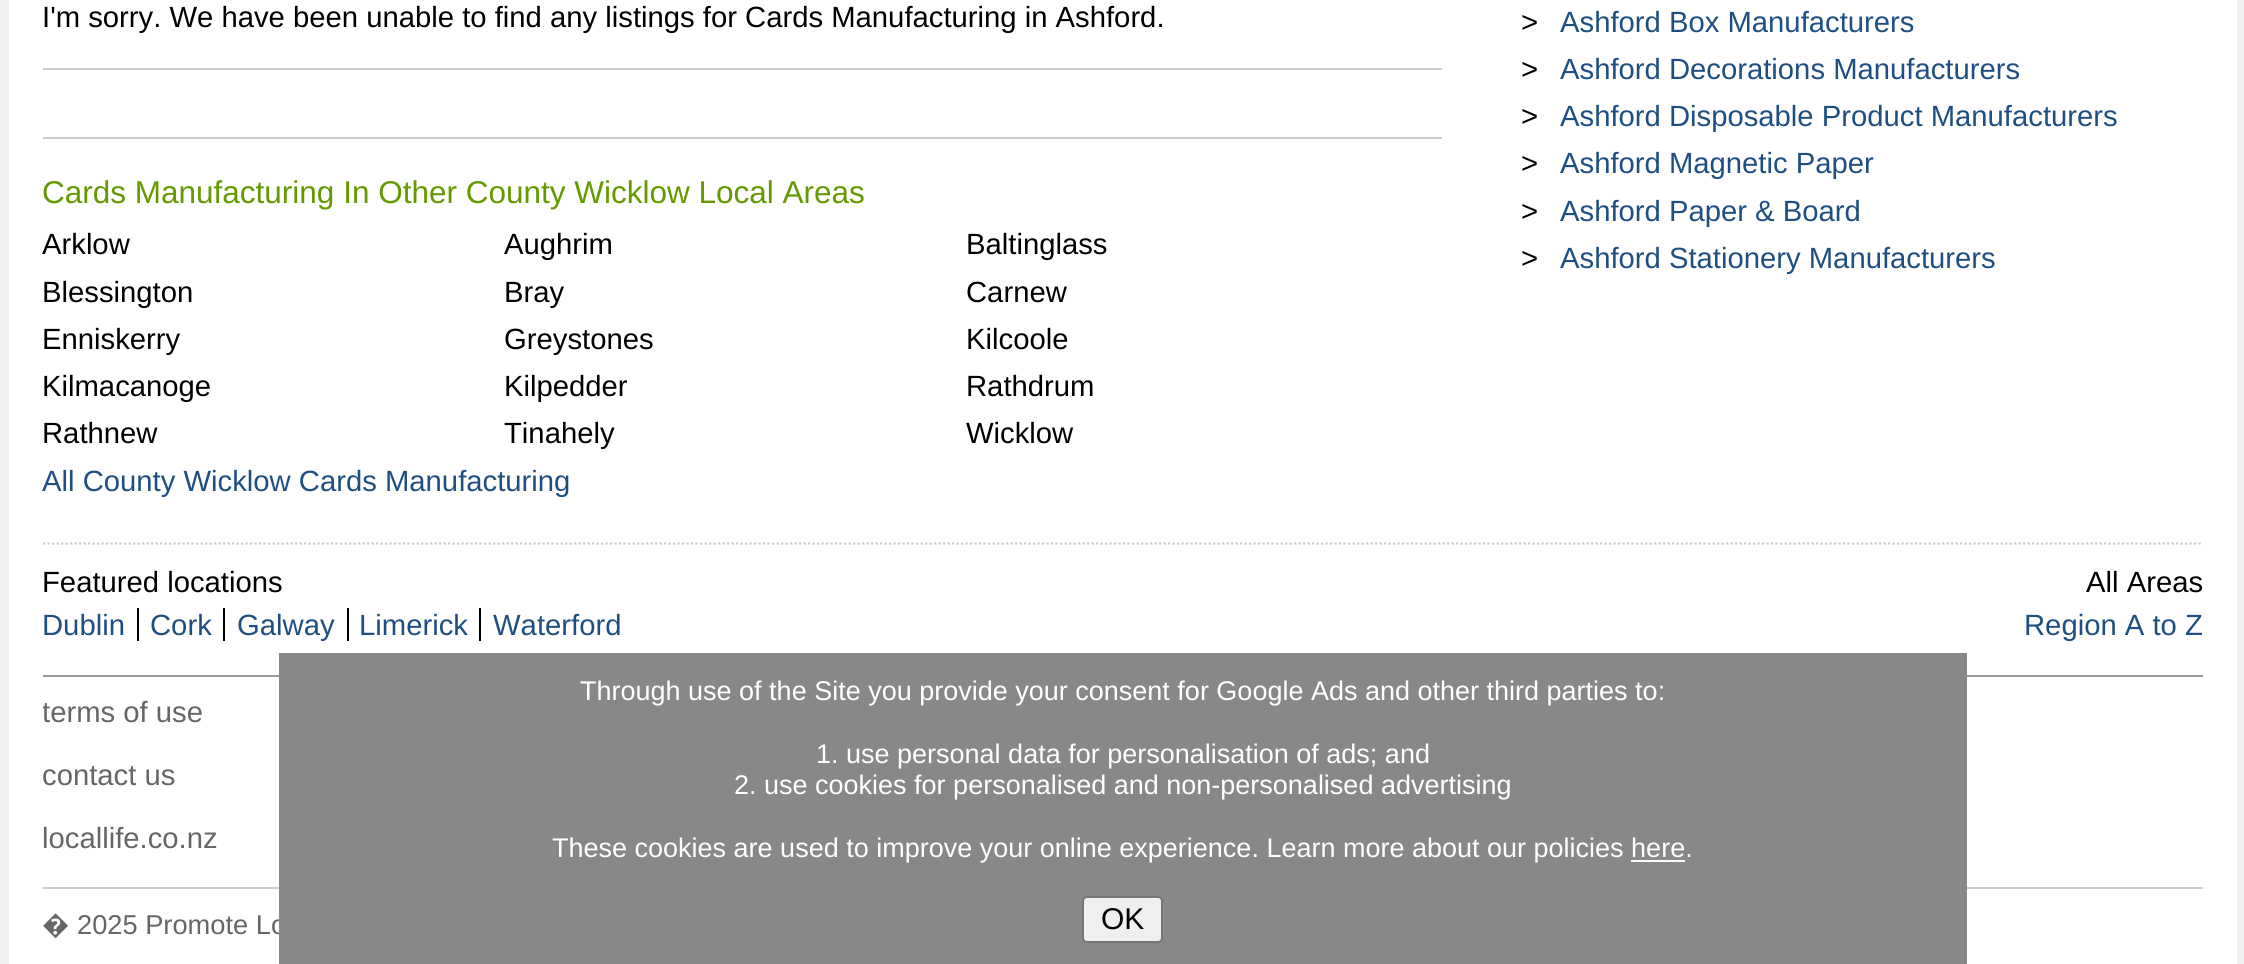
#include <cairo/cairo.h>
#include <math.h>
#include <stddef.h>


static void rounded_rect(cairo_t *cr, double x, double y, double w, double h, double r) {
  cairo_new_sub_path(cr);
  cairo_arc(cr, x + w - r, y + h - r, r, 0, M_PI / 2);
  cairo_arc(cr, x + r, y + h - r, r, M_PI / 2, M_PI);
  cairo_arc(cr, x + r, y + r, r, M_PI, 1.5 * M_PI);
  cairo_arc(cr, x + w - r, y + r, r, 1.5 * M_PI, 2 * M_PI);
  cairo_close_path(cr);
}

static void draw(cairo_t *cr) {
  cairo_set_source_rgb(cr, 239 / 255.0, 239 / 255.0, 239 / 255.0);
  cairo_paint(cr);
  cairo_set_source_rgb(cr, 1, 1, 1);
  cairo_rectangle(cr, 9, 0, 2228, 964);
  cairo_fill(cr);
  cairo_set_source_rgb(cr, 204 / 255.0, 204 / 255.0, 204 / 255.0);
  cairo_rectangle(cr, 43, 68, 1399, 2);
  cairo_fill(cr);
  cairo_rectangle(cr, 43, 137, 1399, 2);
  cairo_fill(cr);
  cairo_new_path(cr);
  cairo_move_to(cr, 43, 543.5);
  cairo_line_to(cr, 2203, 543.5);
  cairo_set_line_width(cr, 2.2);
  cairo_set_dash(cr, (double[]){2.25, 2.25}, 2, 0);
  cairo_stroke(cr);
  cairo_set_source_rgb(cr, 0, 0, 0);
  cairo_rectangle(cr, 137, 608, 2, 33);
  cairo_fill(cr);
  cairo_rectangle(cr, 223, 608, 2, 33);
  cairo_fill(cr);
  cairo_rectangle(cr, 347, 608, 2, 33);
  cairo_fill(cr);
  cairo_rectangle(cr, 479, 608, 2, 33);
  cairo_fill(cr);
  cairo_set_source_rgb(cr, 156 / 255.0, 156 / 255.0, 156 / 255.0);
  cairo_rectangle(cr, 43, 675, 2160, 2);
  cairo_fill(cr);
  cairo_set_source_rgb(cr, 204 / 255.0, 204 / 255.0, 204 / 255.0);
  cairo_rectangle(cr, 43, 887, 2160, 2);
  cairo_fill(cr);
  cairo_select_font_face(cr, "Liberation Sans", CAIRO_FONT_SLANT_NORMAL, CAIRO_FONT_WEIGHT_NORMAL);
  cairo_set_font_size(cr, 29.25);
  cairo_set_source_rgb(cr, 0, 0, 0);
  cairo_move_to(cr, 42, 27);
  cairo_show_text(cr, "I'm sorry. We have been unable to find any listings for Cards Manufacturing in Ashford.");
  cairo_set_font_size(cr, 31.5);
  cairo_set_source_rgb(cr, 102 / 255.0, 153 / 255.0, 0);
  cairo_move_to(cr, 42, 203);
  cairo_show_text(cr, "Cards Manufacturing In Other County Wicklow Local Areas");
  cairo_set_font_size(cr, 29.25);
  cairo_set_source_rgb(cr, 0, 0, 0);
  cairo_move_to(cr, 42, 254);
  cairo_show_text(cr, "Arklow");
  cairo_move_to(cr, 504, 254);
  cairo_show_text(cr, "Aughrim");
  cairo_move_to(cr, 966, 254);
  cairo_show_text(cr, "Baltinglass");
  cairo_move_to(cr, 42, 302);
  cairo_show_text(cr, "Blessington");
  cairo_move_to(cr, 504, 302);
  cairo_show_text(cr, "Bray");
  cairo_move_to(cr, 966, 302);
  cairo_show_text(cr, "Carnew");
  cairo_move_to(cr, 42, 349);
  cairo_show_text(cr, "Enniskerry");
  cairo_move_to(cr, 504, 349);
  cairo_show_text(cr, "Greystones");
  cairo_move_to(cr, 966, 349);
  cairo_show_text(cr, "Kilcoole");
  cairo_move_to(cr, 42, 396);
  cairo_show_text(cr, "Kilmacanoge");
  cairo_move_to(cr, 504, 396);
  cairo_show_text(cr, "Kilpedder");
  cairo_move_to(cr, 966, 396);
  cairo_show_text(cr, "Rathdrum");
  cairo_move_to(cr, 42, 443);
  cairo_show_text(cr, "Rathnew");
  cairo_move_to(cr, 504, 443);
  cairo_show_text(cr, "Tinahely");
  cairo_move_to(cr, 966, 443);
  cairo_show_text(cr, "Wicklow");
  cairo_set_source_rgb(cr, 31 / 255.0, 79 / 255.0, 130 / 255.0);
  cairo_move_to(cr, 42, 491);
  cairo_show_text(cr, "All County Wicklow Cards Manufacturing");
  cairo_set_source_rgb(cr, 0, 0, 0);
  cairo_move_to(cr, 1521, 32);
  cairo_show_text(cr, ">");
  cairo_set_source_rgb(cr, 31 / 255.0, 79 / 255.0, 130 / 255.0);
  cairo_move_to(cr, 1560, 32);
  cairo_show_text(cr, "Ashford Box Manufacturers");
  cairo_set_source_rgb(cr, 0, 0, 0);
  cairo_move_to(cr, 1521, 79);
  cairo_show_text(cr, ">");
  cairo_set_source_rgb(cr, 31 / 255.0, 79 / 255.0, 130 / 255.0);
  cairo_move_to(cr, 1560, 79);
  cairo_show_text(cr, "Ashford Decorations Manufacturers");
  cairo_set_source_rgb(cr, 0, 0, 0);
  cairo_move_to(cr, 1521, 126);
  cairo_show_text(cr, ">");
  cairo_set_source_rgb(cr, 31 / 255.0, 79 / 255.0, 130 / 255.0);
  cairo_move_to(cr, 1560, 126);
  cairo_show_text(cr, "Ashford Disposable Product Manufacturers");
  cairo_set_source_rgb(cr, 0, 0, 0);
  cairo_move_to(cr, 1521, 173);
  cairo_show_text(cr, ">");
  cairo_set_source_rgb(cr, 31 / 255.0, 79 / 255.0, 130 / 255.0);
  cairo_move_to(cr, 1560, 173);
  cairo_show_text(cr, "Ashford Magnetic Paper");
  cairo_set_source_rgb(cr, 0, 0, 0);
  cairo_move_to(cr, 1521, 221);
  cairo_show_text(cr, ">");
  cairo_set_source_rgb(cr, 31 / 255.0, 79 / 255.0, 130 / 255.0);
  cairo_move_to(cr, 1560, 221);
  cairo_show_text(cr, "Ashford Paper & Board");
  cairo_set_source_rgb(cr, 0, 0, 0);
  cairo_move_to(cr, 1521, 268);
  cairo_show_text(cr, ">");
  cairo_set_source_rgb(cr, 31 / 255.0, 79 / 255.0, 130 / 255.0);
  cairo_move_to(cr, 1560, 268);
  cairo_show_text(cr, "Ashford Stationery Manufacturers");
  cairo_set_source_rgb(cr, 0, 0, 0);
  cairo_move_to(cr, 42, 592);
  cairo_show_text(cr, "Featured locations");
  cairo_set_source_rgb(cr, 31 / 255.0, 79 / 255.0, 130 / 255.0);
  cairo_move_to(cr, 42, 635);
  cairo_show_text(cr, "Dublin");
  cairo_move_to(cr, 150, 635);
  cairo_show_text(cr, "Cork");
  cairo_move_to(cr, 237, 635);
  cairo_show_text(cr, "Galway");
  cairo_move_to(cr, 359, 635);
  cairo_show_text(cr, "Limerick");
  cairo_move_to(cr, 493, 635);
  cairo_show_text(cr, "Waterford");
  cairo_set_source_rgb(cr, 0, 0, 0);
  cairo_move_to(cr, 2086, 592);
  cairo_show_text(cr, "All Areas");
  cairo_set_source_rgb(cr, 31 / 255.0, 79 / 255.0, 130 / 255.0);
  cairo_move_to(cr, 2024, 635);
  cairo_show_text(cr, "Region A to Z");
  cairo_save(cr);
  cairo_rectangle(cr, 43, 682, 2160, 189);
  cairo_clip(cr);
  cairo_set_source_rgb(cr, 102 / 255.0, 102 / 255.0, 102 / 255.0);
  cairo_move_to(cr, 42, 722);
  cairo_show_text(cr, "terms of use");
  cairo_restore(cr);
  cairo_set_source_rgb(cr, 102 / 255.0, 102 / 255.0, 102 / 255.0);
  cairo_move_to(cr, 42, 785);
  cairo_show_text(cr, "contact us");
  cairo_move_to(cr, 42, 848);
  cairo_show_text(cr, "locallife.co.nz");
  cairo_select_font_face(cr, "Noto Sans", CAIRO_FONT_SLANT_NORMAL, CAIRO_FONT_WEIGHT_NORMAL);
  cairo_set_font_size(cr, 27.25);
  cairo_move_to(cr, 42, 934);
  cairo_show_text(cr, "�");
  cairo_select_font_face(cr, "Liberation Sans", CAIRO_FONT_SLANT_NORMAL, CAIRO_FONT_WEIGHT_NORMAL);
  cairo_move_to(cr, 77, 934);
  cairo_show_text(cr, "2025 Promote Lo");
  cairo_set_source_rgb(cr, 136 / 255.0, 136 / 255.0, 136 / 255.0);
  cairo_rectangle(cr, 279, 653, 1688, 311);
  cairo_fill(cr);
  cairo_set_font_size(cr, 27);
  cairo_set_source_rgb(cr, 1, 1, 1);
  cairo_move_to(cr, 580, 700);
  cairo_show_text(cr, "Through use of the Site you provide your consent for Google Ads and other third parties to:");
  cairo_move_to(cr, 816, 763);
  cairo_show_text(cr, "1. use personal data for personalisation of ads; and");
  cairo_move_to(cr, 734, 794);
  cairo_show_text(cr, "2. use cookies for personalised and non-personalised advertising");
  cairo_move_to(cr, 552, 857);
  cairo_show_text(cr, "These cookies are used to improve your online experience. Learn more about our policies here.");
  cairo_rectangle(cr, 1631, 860, 54, 2);
  cairo_fill(cr);
  cairo_set_source_rgb(cr, 239 / 255.0, 239 / 255.0, 239 / 255.0);
  rounded_rect(cr, 1083, 897, 79, 45, 4);
  cairo_fill_preserve(cr);
  cairo_set_source_rgb(cr, 118 / 255.0, 118 / 255.0, 118 / 255.0);
  cairo_set_line_width(cr, 2);
  cairo_set_dash(cr, NULL, 0, 0);
  cairo_stroke(cr);
  cairo_set_font_size(cr, 30);
  cairo_set_source_rgb(cr, 0, 0, 0);
  cairo_move_to(cr, 1101, 929);
  cairo_show_text(cr, "OK");
}

int main(void) {
  cairo_surface_t *surface = cairo_image_surface_create(CAIRO_FORMAT_RGB24, 2244, 964);
  cairo_t *cr = cairo_create(surface);
  cairo_font_options_t *options = cairo_font_options_create();
  cairo_font_options_set_hint_metrics(options, CAIRO_HINT_METRICS_OFF);
  cairo_font_options_set_hint_style(options, CAIRO_HINT_STYLE_NONE);
  cairo_set_font_options(cr, options);
  cairo_set_miter_limit(cr, 4);
  draw(cr);
  cairo_surface_write_to_png(surface, "out.png");
  cairo_font_options_destroy(options);
  cairo_destroy(cr);
  cairo_surface_destroy(surface);
  return 0;
}
